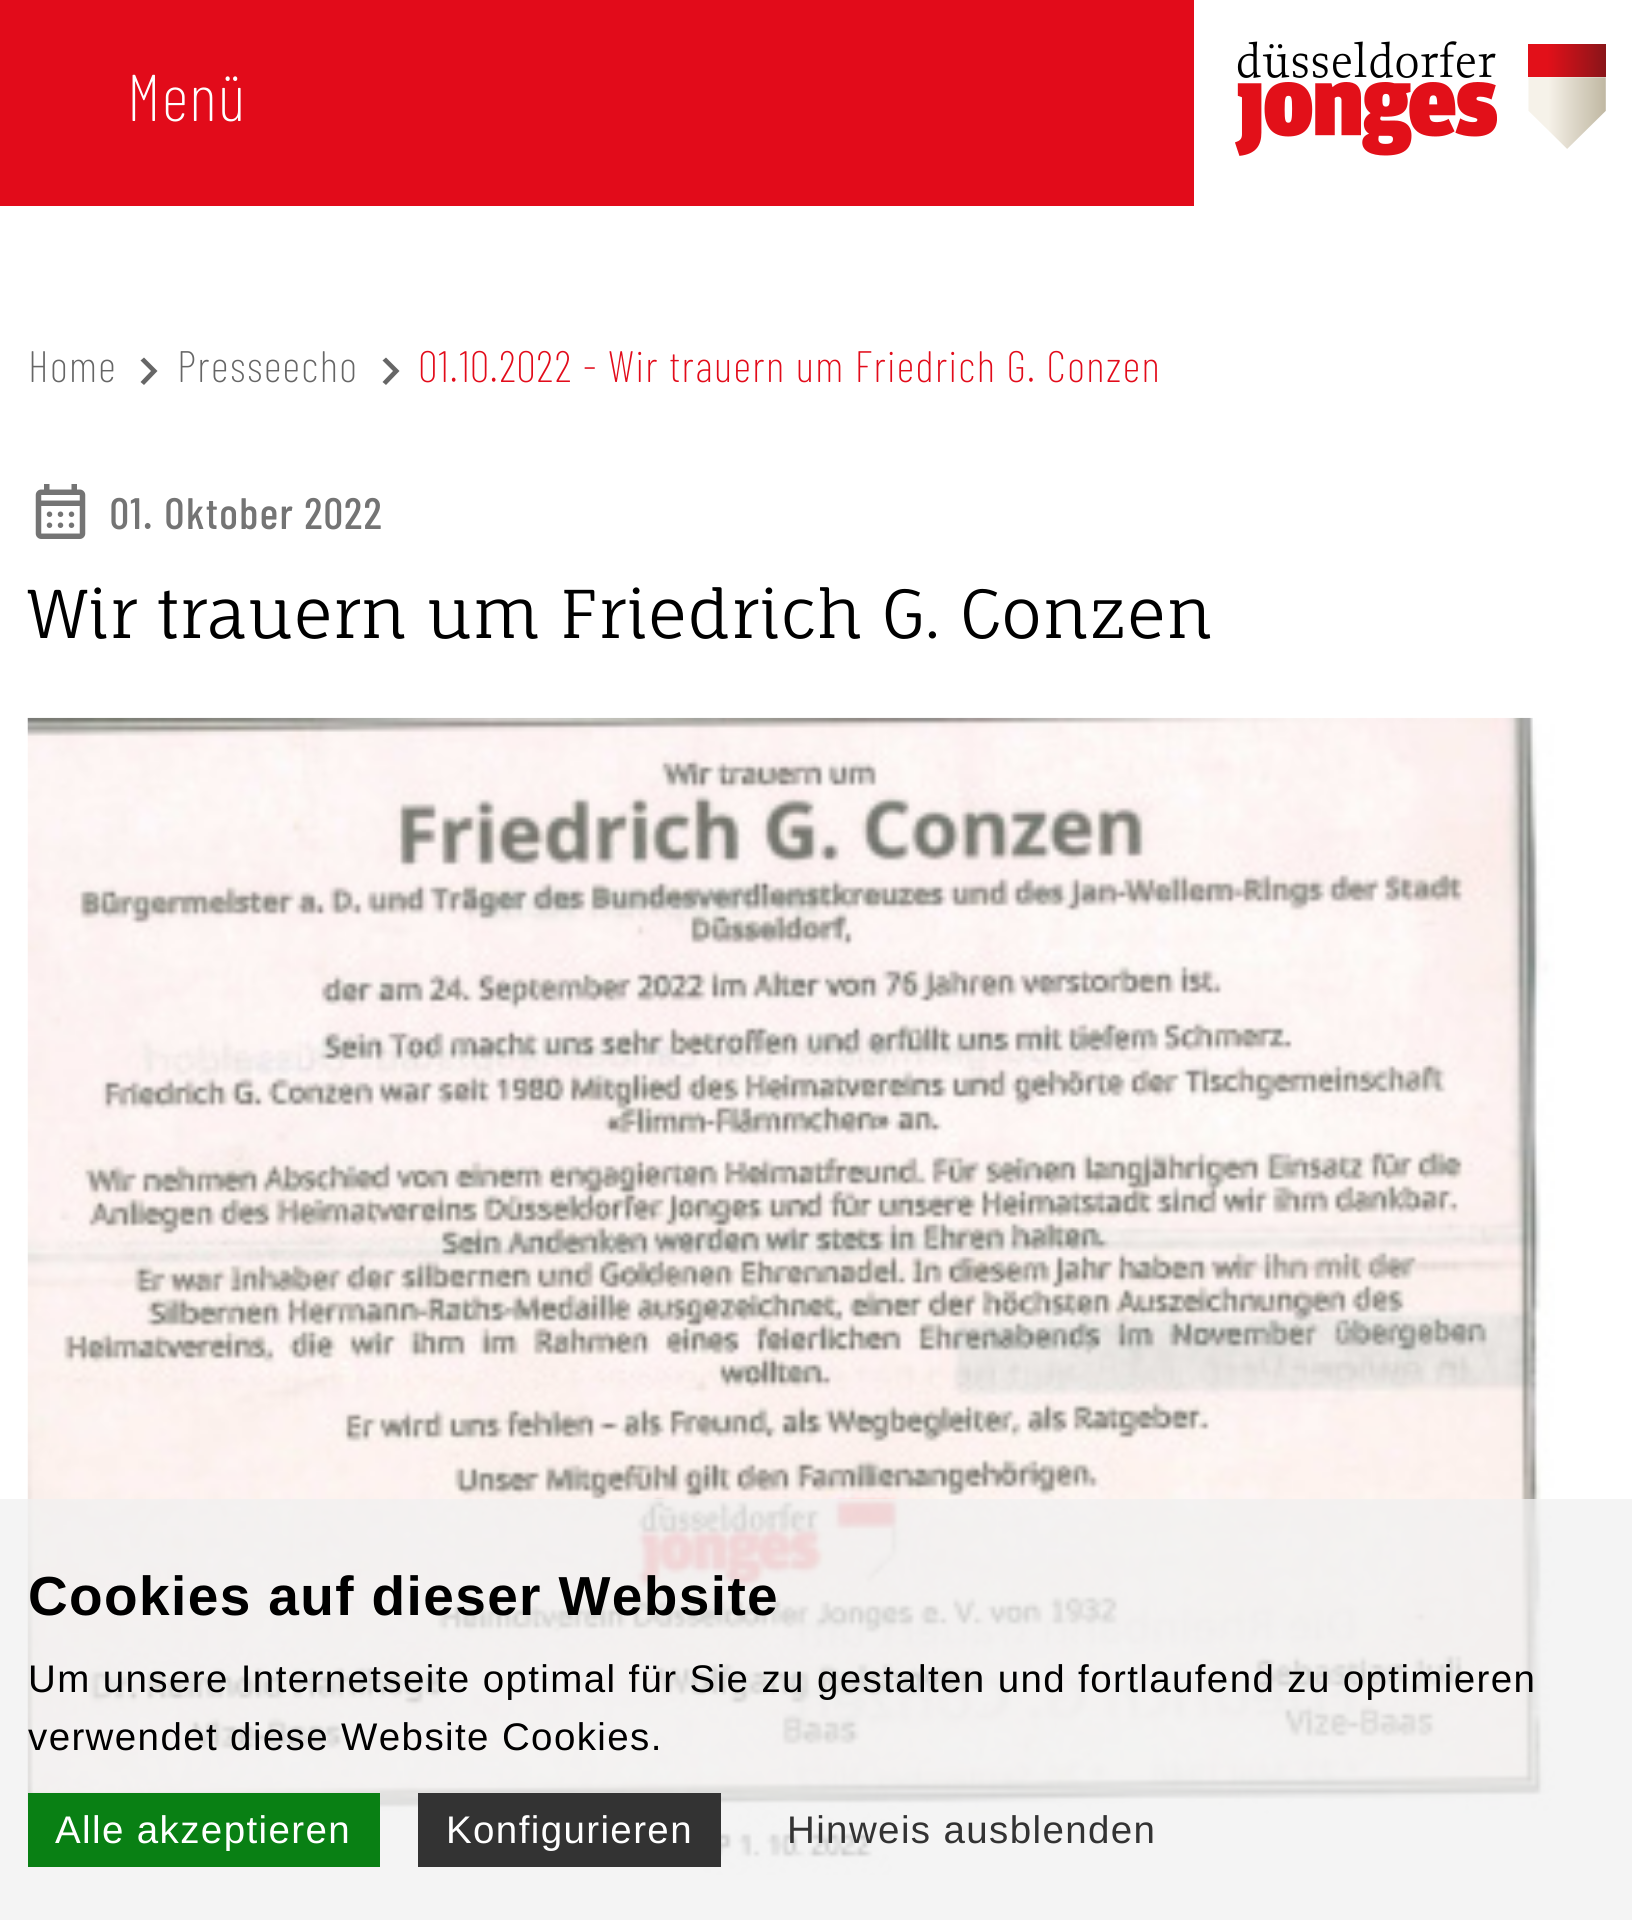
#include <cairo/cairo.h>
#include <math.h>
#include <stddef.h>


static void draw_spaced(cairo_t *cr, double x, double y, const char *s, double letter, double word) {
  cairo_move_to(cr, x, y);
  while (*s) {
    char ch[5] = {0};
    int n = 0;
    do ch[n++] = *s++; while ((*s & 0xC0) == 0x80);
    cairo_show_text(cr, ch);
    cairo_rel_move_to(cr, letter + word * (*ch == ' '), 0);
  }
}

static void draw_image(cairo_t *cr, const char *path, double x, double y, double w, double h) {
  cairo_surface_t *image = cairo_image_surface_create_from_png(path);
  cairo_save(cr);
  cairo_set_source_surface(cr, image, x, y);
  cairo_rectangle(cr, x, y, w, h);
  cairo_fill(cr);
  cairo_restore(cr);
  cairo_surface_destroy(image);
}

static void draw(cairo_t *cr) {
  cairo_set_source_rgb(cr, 1, 1, 1);
  cairo_paint(cr);
  cairo_set_source_rgb(cr, 226 / 255.0, 11 / 255.0, 26 / 255.0);
  cairo_rectangle(cr, 0, 0, 1194, 206);
  cairo_fill(cr);
  draw_image(cr, "images/1.png", 1235, 41, 371, 115);
  cairo_set_source_rgb(cr, 102 / 255.0, 102 / 255.0, 102 / 255.0);
  cairo_new_path(cr);
  cairo_move_to(cr, 144, 357.5);
  cairo_line_to(cr, 140.5, 360.5);
  cairo_line_to(cr, 151, 371);
  cairo_line_to(cr, 140.5, 382);
  cairo_line_to(cr, 144, 385);
  cairo_line_to(cr, 157.5, 371);
  cairo_close_path(cr);
  cairo_fill(cr);
  cairo_new_path(cr);
  cairo_move_to(cr, 386, 357.5);
  cairo_line_to(cr, 382.5, 360.5);
  cairo_line_to(cr, 393, 371);
  cairo_line_to(cr, 382.5, 382);
  cairo_line_to(cr, 386, 385);
  cairo_line_to(cr, 399.5, 371);
  cairo_close_path(cr);
  cairo_fill(cr);
  draw_image(cr, "images/2.png", 35, 484, 51, 55);
  draw_image(cr, "images/3.png", 27, 717, 1528, 1158);
  cairo_set_source_rgba(cr, 240 / 255.0, 240 / 255.0, 240 / 255.0, 0.75);
  cairo_rectangle(cr, 0, 1499, 1632, 421);
  cairo_fill(cr);
  cairo_set_source_rgb(cr, 9 / 255.0, 128 / 255.0, 20 / 255.0);
  cairo_rectangle(cr, 28, 1793, 352, 74);
  cairo_fill(cr);
  cairo_set_source_rgb(cr, 51 / 255.0, 51 / 255.0, 51 / 255.0);
  cairo_rectangle(cr, 418, 1793, 303, 74);
  cairo_fill(cr);
  cairo_select_font_face(cr, "Barlow Condensed ExtraLight", CAIRO_FONT_SLANT_NORMAL, CAIRO_FONT_WEIGHT_NORMAL);
  cairo_set_font_size(cr, 66);
  cairo_set_source_rgb(cr, 1, 1, 1);
  draw_spaced(cr, 127, 121, "Menü", 1.38, 0);
  cairo_set_font_size(cr, 44);
  cairo_set_source_rgb(cr, 102 / 255.0, 102 / 255.0, 102 / 255.0);
  draw_spaced(cr, 28, 382, "Home", 1.38, 0);
  draw_spaced(cr, 177, 382, "Presseecho", 1.38, 0);
  cairo_set_source_rgb(cr, 226 / 255.0, 11 / 255.0, 26 / 255.0);
  draw_spaced(cr, 419, 382, "01.10.2022 - Wir trauern um Friedrich G. Conzen", 1.38, 0);
  cairo_select_font_face(cr, "Barlow Condensed Medium", CAIRO_FONT_SLANT_NORMAL, CAIRO_FONT_WEIGHT_NORMAL);
  cairo_set_source_rgb(cr, 116 / 255.0, 116 / 255.0, 116 / 255.0);
  draw_spaced(cr, 110, 529, "01. Oktober 2022", 1.38, 0);
  cairo_select_font_face(cr, "Fauna One", CAIRO_FONT_SLANT_NORMAL, CAIRO_FONT_WEIGHT_NORMAL);
  cairo_set_font_size(cr, 66);
  cairo_set_source_rgb(cr, 0, 0, 0);
  cairo_move_to(cr, 28, 638);
  cairo_show_text(cr, "Wir trauern um Friedrich G. Conzen");
  cairo_select_font_face(cr, "Liberation Sans", CAIRO_FONT_SLANT_NORMAL, CAIRO_FONT_WEIGHT_BOLD);
  cairo_set_font_size(cr, 55);
  draw_spaced(cr, 28, 1615, "Cookies auf dieser Website", 1.38, 0);
  cairo_select_font_face(cr, "Liberation Sans", CAIRO_FONT_SLANT_NORMAL, CAIRO_FONT_WEIGHT_NORMAL);
  cairo_set_font_size(cr, 38.5);
  draw_spaced(cr, 28, 1692, "Um unsere Internetseite optimal für Sie zu gestalten und fortlaufend zu optimieren", 1.38, 0);
  draw_spaced(cr, 28, 1750, "verwendet diese Website Cookies.", 1.38, 0);
  cairo_set_source_rgb(cr, 1, 1, 1);
  draw_spaced(cr, 55, 1843, "Alle akzeptieren", 1.38, 0);
  draw_spaced(cr, 446, 1843, "Konfigurieren", 1.38, 0);
  cairo_set_source_rgb(cr, 51 / 255.0, 51 / 255.0, 51 / 255.0);
  draw_spaced(cr, 787, 1843, "Hinweis ausblenden", 1.38, 0);
}

int main(void) {
  cairo_surface_t *surface = cairo_image_surface_create(CAIRO_FORMAT_RGB24, 1632, 1920);
  cairo_t *cr = cairo_create(surface);
  cairo_font_options_t *options = cairo_font_options_create();
  cairo_font_options_set_hint_metrics(options, CAIRO_HINT_METRICS_OFF);
  cairo_font_options_set_hint_style(options, CAIRO_HINT_STYLE_NONE);
  cairo_set_font_options(cr, options);
  cairo_set_miter_limit(cr, 4);
  draw(cr);
  cairo_surface_write_to_png(surface, "out.png");
  cairo_font_options_destroy(options);
  cairo_destroy(cr);
  cairo_surface_destroy(surface);
  return 0;
}
